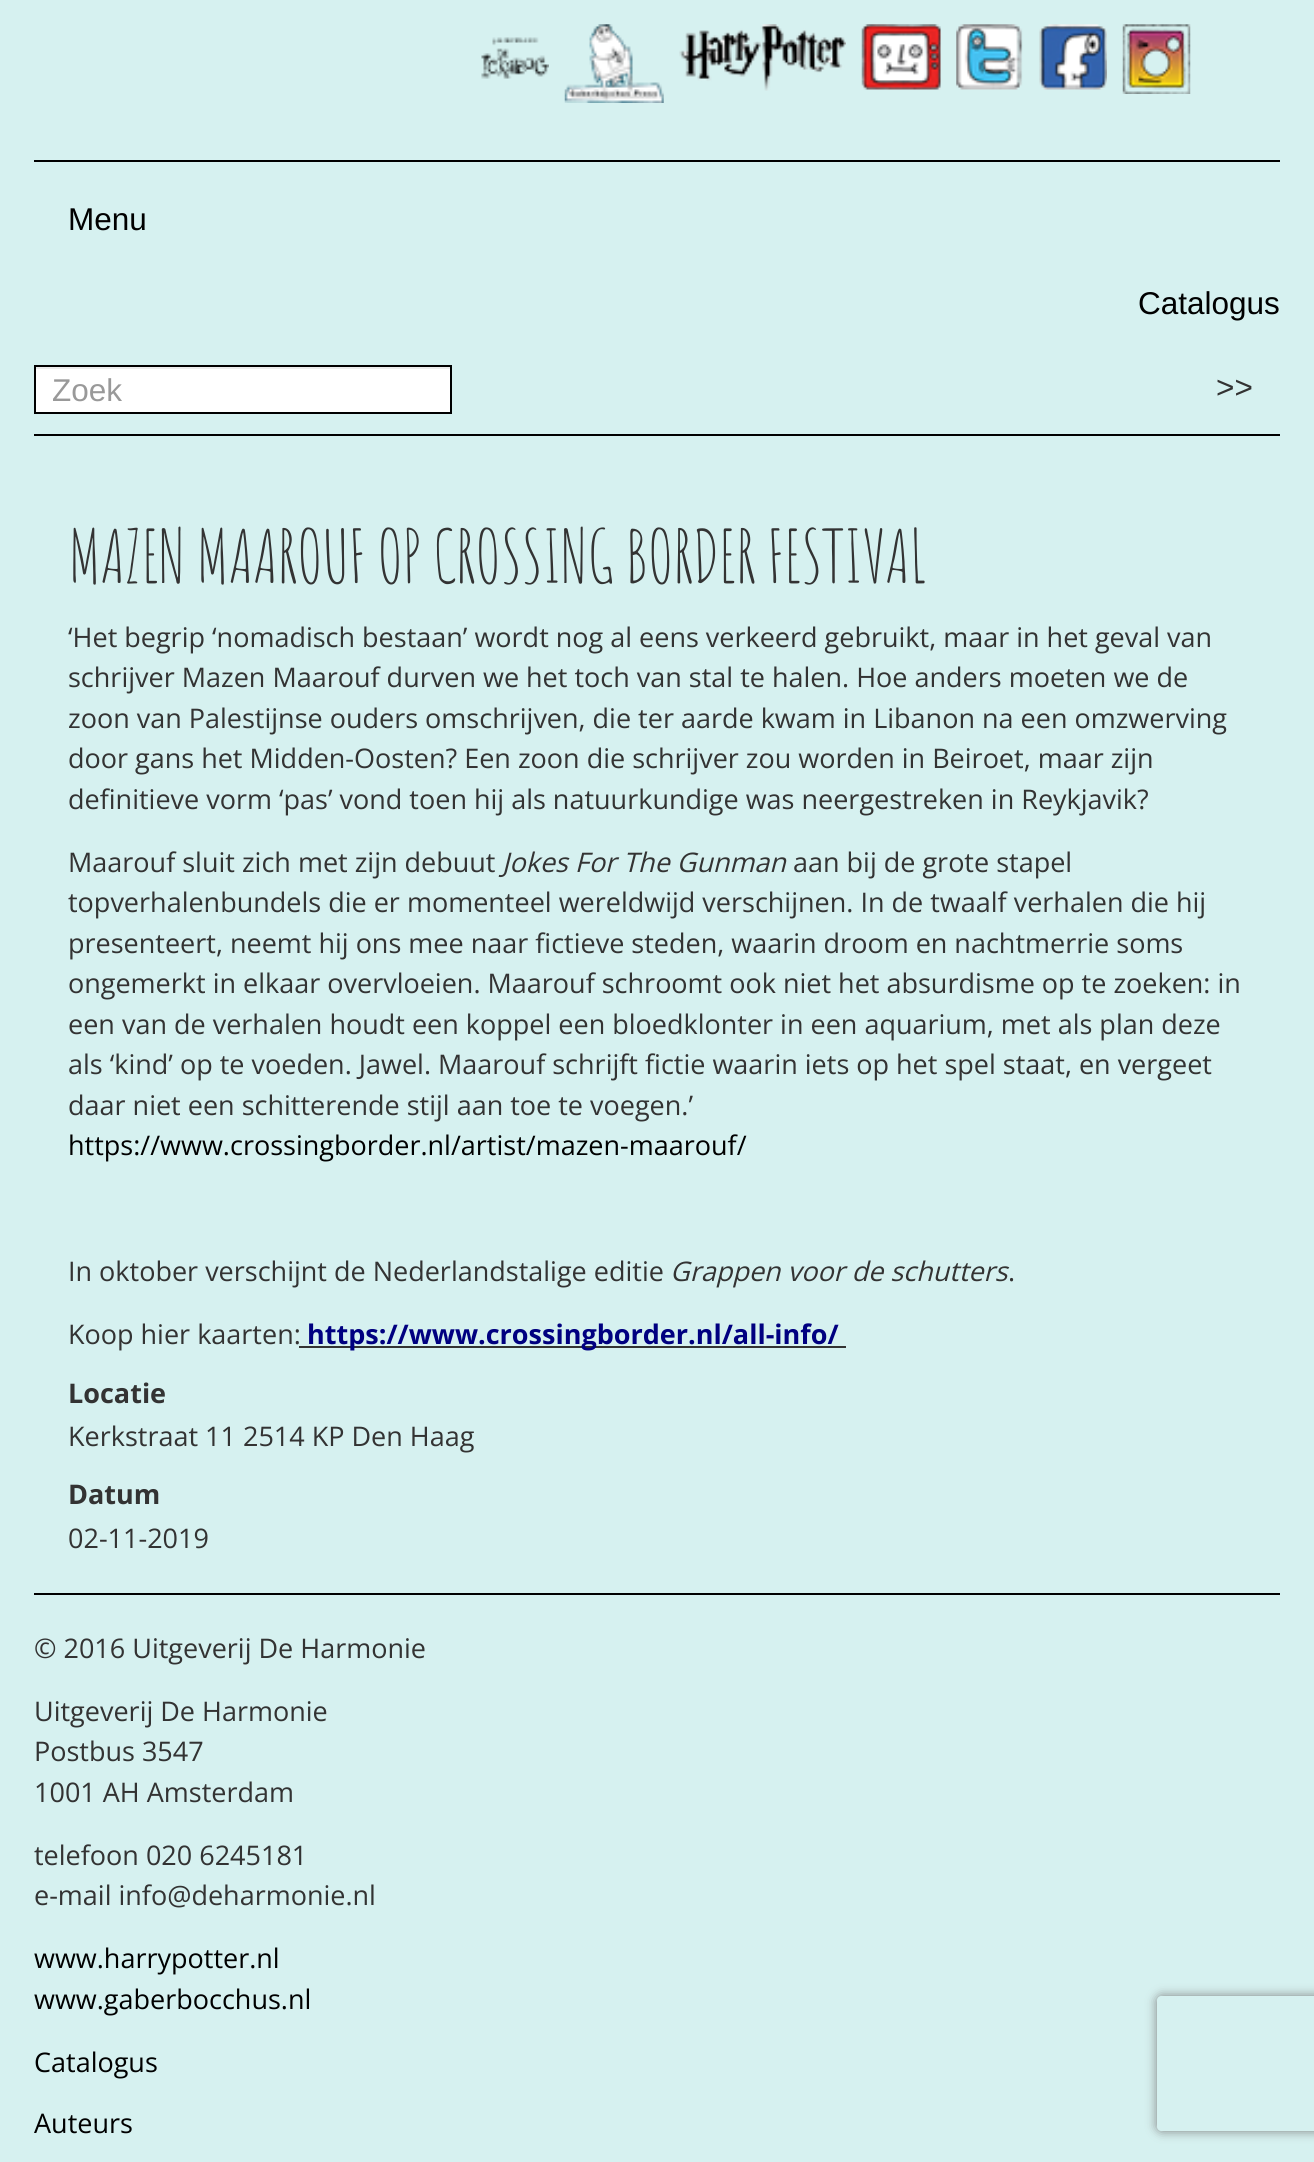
#include <cairo/cairo.h>
#include <math.h>
#include <stddef.h>


static void draw_spaced(cairo_t *cr, double x, double y, const char *s, double letter, double word) {
  cairo_move_to(cr, x, y);
  while (*s) {
    char ch[5] = {0};
    int n = 0;
    do ch[n++] = *s++; while ((*s & 0xC0) == 0x80);
    cairo_show_text(cr, ch);
    cairo_rel_move_to(cr, letter + word * (*ch == ' '), 0);
  }
}

static void rounded_rect(cairo_t *cr, double x, double y, double w, double h, double r) {
  cairo_new_sub_path(cr);
  cairo_arc(cr, x + w - r, y + h - r, r, 0, M_PI / 2);
  cairo_arc(cr, x + r, y + h - r, r, M_PI / 2, M_PI);
  cairo_arc(cr, x + r, y + r, r, M_PI, 1.5 * M_PI);
  cairo_arc(cr, x + w - r, y + r, r, 1.5 * M_PI, 2 * M_PI);
  cairo_close_path(cr);
}

static void draw_shadow(cairo_t *cr, double x, double y, double w, double h, double r, double blur, double alpha) {
  cairo_push_group_with_content(cr, CAIRO_CONTENT_ALPHA);
  cairo_set_operator(cr, CAIRO_OPERATOR_SOURCE);
  for (int i = 15; i >= -15 && fmin(w, h) + blur * i / 3 > 0; i -= 2) {
    double e = blur * i / 6;
    cairo_set_source_rgba(cr, 0, 0, 0, alpha * erfc((i - 1) / 8.5) / 2);
    rounded_rect(cr, x - e, y - e, w + 2 * e, h + 2 * e, fmax(0, fmin(r + e + blur * .6, fmin(w, h) / 2 + e)));
    cairo_fill(cr);
  }
  cairo_pattern_t *soft = cairo_pop_group(cr);
  cairo_mask(cr, soft);
  cairo_pattern_destroy(soft);
}

static void draw_image(cairo_t *cr, const char *path, double x, double y, double w, double h) {
  cairo_surface_t *image = cairo_image_surface_create_from_png(path);
  cairo_save(cr);
  cairo_set_source_surface(cr, image, x, y);
  cairo_rectangle(cr, x, y, w, h);
  cairo_fill(cr);
  cairo_restore(cr);
  cairo_surface_destroy(image);
}

static void draw(cairo_t *cr) {
  cairo_set_source_rgb(cr, 214 / 255.0, 241 / 255.0, 240 / 255.0);
  cairo_paint(cr);
  draw_image(cr, "images/1.png", 481, 37, 68, 42);
  draw_image(cr, "images/2.png", 564, 24, 100, 79);
  draw_image(cr, "images/3.png", 679, 24, 167, 67);
  draw_image(cr, "images/4.png", 861, 24, 80, 66);
  draw_image(cr, "images/5.png", 956, 24, 67, 66);
  draw_image(cr, "images/6.png", 1039, 24, 68, 66);
  draw_image(cr, "images/7.png", 1122, 24, 69, 70);
  cairo_set_source_rgb(cr, 0, 0, 0);
  cairo_rectangle(cr, 34, 160, 1246, 2);
  cairo_fill(cr);
  cairo_set_source_rgb(cr, 1, 1, 1);
  cairo_rectangle(cr, 36, 369, 414, 43);
  cairo_fill(cr);
  cairo_set_source_rgb(cr, 236 / 255.0, 236 / 255.0, 236 / 255.0);
  cairo_rectangle(cr, 36, 367, 414, 2);
  cairo_fill(cr);
  cairo_rectangle(cr, 35, 366, 416, 47);
  cairo_set_source_rgb(cr, 0, 0, 0);
  cairo_stroke(cr);
  cairo_rectangle(cr, 34, 434, 1246, 2);
  cairo_fill(cr);
  cairo_set_source_rgb(cr, 51 / 255.0, 51 / 255.0, 51 / 255.0);
  cairo_rectangle(cr, 299, 1346, 547, 2);
  cairo_fill(cr);
  cairo_set_source_rgb(cr, 0, 0, 0);
  cairo_rectangle(cr, 34, 1593, 1246, 2);
  cairo_fill(cr);
  cairo_save(cr);
  cairo_set_fill_rule(cr, CAIRO_FILL_RULE_EVEN_ODD);
  cairo_new_path(cr);
  cairo_move_to(cr, 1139, 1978);
  cairo_line_to(cr, 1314, 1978);
  cairo_line_to(cr, 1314, 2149);
  cairo_line_to(cr, 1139, 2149);
  cairo_close_path(cr);
  cairo_move_to(cr, 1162, 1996);
  cairo_line_to(cr, 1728, 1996);
  cairo_curve_to(cr, 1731, 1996, 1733, 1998, 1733, 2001);
  cairo_line_to(cr, 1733, 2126);
  cairo_curve_to(cr, 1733, 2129, 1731, 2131, 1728, 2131);
  cairo_line_to(cr, 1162, 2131);
  cairo_curve_to(cr, 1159, 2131, 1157, 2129, 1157, 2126);
  cairo_line_to(cr, 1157, 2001);
  cairo_curve_to(cr, 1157, 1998, 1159, 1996, 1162, 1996);
  cairo_close_path(cr);
  cairo_clip(cr);
  cairo_set_source_rgb(cr, 128 / 255.0, 128 / 255.0, 128 / 255.0);
  draw_shadow(cr, 1157, 1996, 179, 135, 5, 5.5, 1);
  cairo_restore(cr);
  cairo_select_font_face(cr, "Liberation Sans", CAIRO_FONT_SLANT_NORMAL, CAIRO_FONT_WEIGHT_NORMAL);
  cairo_set_font_size(cr, 31.5);
  cairo_move_to(cr, 68, 230);
  cairo_show_text(cr, "Menu");
  cairo_move_to(cr, 1138, 314);
  cairo_show_text(cr, "Catalogus");
  cairo_set_source_rgb(cr, 153 / 255.0, 153 / 255.0, 153 / 255.0);
  cairo_move_to(cr, 52, 401);
  cairo_show_text(cr, "Zoek");
  cairo_set_source_rgb(cr, 51 / 255.0, 51 / 255.0, 51 / 255.0);
  cairo_move_to(cr, 1216, 398);
  cairo_show_text(cr, ">>");
  cairo_select_font_face(cr, "Amatic SC", CAIRO_FONT_SLANT_NORMAL, CAIRO_FONT_WEIGHT_NORMAL);
  cairo_set_font_size(cr, 72.5);
  draw_spaced(cr, 68, 583, "MAZEN MAAROUF OP CROSSING BORDER FESTIVAL", -1.1, 0);
  cairo_select_font_face(cr, "Open Sans", CAIRO_FONT_SLANT_NORMAL, CAIRO_FONT_WEIGHT_NORMAL);
  cairo_set_font_size(cr, 27);
  cairo_move_to(cr, 68, 647);
  cairo_show_text(cr, "‘Het begrip ‘nomadisch bestaan’ wordt nog al eens verkeerd gebruikt, maar in het geval van");
  cairo_move_to(cr, 68, 687);
  cairo_show_text(cr, "schrijver Mazen Maarouf durven we het toch van stal te halen. Hoe anders moeten we de");
  cairo_move_to(cr, 68, 728);
  cairo_show_text(cr, "zoon van Palestijnse ouders omschrijven, die ter aarde kwam in Libanon na een omzwerving");
  cairo_move_to(cr, 68, 768);
  cairo_show_text(cr, "door gans het Midden-Oosten? Een zoon die schrijver zou worden in Beiroet, maar zijn");
  cairo_move_to(cr, 68, 809);
  cairo_show_text(cr, "definitieve vorm ‘pas’ vond toen hij als natuurkundige was neergestreken in Reykjavik?");
  cairo_move_to(cr, 68, 872);
  cairo_show_text(cr, "Maarouf sluit zich met zijn debuut");
  cairo_select_font_face(cr, "Open Sans", CAIRO_FONT_SLANT_ITALIC, CAIRO_FONT_WEIGHT_NORMAL);
  cairo_move_to(cr, 502, 872);
  cairo_show_text(cr, "Jokes For The Gunman");
  cairo_select_font_face(cr, "Open Sans", CAIRO_FONT_SLANT_NORMAL, CAIRO_FONT_WEIGHT_NORMAL);
  cairo_move_to(cr, 793, 872);
  cairo_show_text(cr, "aan bij de grote stapel");
  cairo_move_to(cr, 68, 912);
  cairo_show_text(cr, "topverhalenbundels die er momenteel wereldwijd verschijnen. In de twaalf verhalen die hij");
  cairo_move_to(cr, 68, 953);
  cairo_show_text(cr, "presenteert, neemt hij ons mee naar fictieve steden, waarin droom en nachtmerrie soms");
  cairo_move_to(cr, 68, 993);
  cairo_show_text(cr, "ongemerkt in elkaar overvloeien. Maarouf schroomt ook niet het absurdisme op te zoeken: in");
  cairo_move_to(cr, 68, 1034);
  cairo_show_text(cr, "een van de verhalen houdt een koppel een bloedklonter in een aquarium, met als plan deze");
  cairo_move_to(cr, 68, 1074);
  cairo_show_text(cr, "als ‘kind’ op te voeden. Jawel. Maarouf schrijft fictie waarin iets op het spel staat, en vergeet");
  cairo_move_to(cr, 68, 1115);
  cairo_show_text(cr, "daar niet een schitterende stijl aan toe te voegen.’");
  cairo_set_source_rgb(cr, 0, 0, 0);
  cairo_move_to(cr, 68, 1155);
  cairo_show_text(cr, "https://www.crossingborder.nl/artist/mazen-maarouf/");
  cairo_set_source_rgb(cr, 51 / 255.0, 51 / 255.0, 51 / 255.0);
  cairo_move_to(cr, 68, 1281);
  cairo_show_text(cr, "In oktober verschijnt de Nederlandstalige editie");
  cairo_select_font_face(cr, "Open Sans", CAIRO_FONT_SLANT_ITALIC, CAIRO_FONT_WEIGHT_NORMAL);
  cairo_move_to(cr, 670, 1281);
  cairo_show_text(cr, "Grappen voor de schutters");
  cairo_select_font_face(cr, "Open Sans", CAIRO_FONT_SLANT_NORMAL, CAIRO_FONT_WEIGHT_NORMAL);
  cairo_move_to(cr, 1008, 1281);
  cairo_show_text(cr, ".");
  cairo_move_to(cr, 68, 1344);
  cairo_show_text(cr, "Koop hier kaarten:");
  cairo_select_font_face(cr, "Open Sans", CAIRO_FONT_SLANT_NORMAL, CAIRO_FONT_WEIGHT_BOLD);
  cairo_set_source_rgb(cr, 0, 0, 128 / 255.0);
  cairo_move_to(cr, 307, 1344);
  cairo_show_text(cr, "https://www.crossingborder.nl/all-info/");
  cairo_set_source_rgb(cr, 51 / 255.0, 51 / 255.0, 51 / 255.0);
  cairo_move_to(cr, 68, 1403);
  cairo_show_text(cr, "Locatie");
  cairo_select_font_face(cr, "Open Sans", CAIRO_FONT_SLANT_NORMAL, CAIRO_FONT_WEIGHT_NORMAL);
  cairo_move_to(cr, 68, 1446);
  cairo_show_text(cr, "Kerkstraat 11 2514 KP Den Haag");
  cairo_select_font_face(cr, "Open Sans", CAIRO_FONT_SLANT_NORMAL, CAIRO_FONT_WEIGHT_BOLD);
  cairo_move_to(cr, 68, 1504);
  cairo_show_text(cr, "Datum");
  cairo_select_font_face(cr, "Open Sans", CAIRO_FONT_SLANT_NORMAL, CAIRO_FONT_WEIGHT_NORMAL);
  cairo_move_to(cr, 68, 1548);
  cairo_show_text(cr, "02-11-2019");
  cairo_move_to(cr, 34, 1658);
  cairo_show_text(cr, "© 2016 Uitgeverij De Harmonie");
  cairo_move_to(cr, 34, 1721);
  cairo_show_text(cr, "Uitgeverij De Harmonie");
  cairo_move_to(cr, 34, 1761);
  cairo_show_text(cr, "Postbus 3547");
  cairo_move_to(cr, 34, 1802);
  cairo_show_text(cr, "1001 AH Amsterdam");
  cairo_move_to(cr, 34, 1865);
  cairo_show_text(cr, "telefoon 020 6245181");
  cairo_move_to(cr, 34, 1905);
  cairo_show_text(cr, "e-mail info@deharmonie.nl");
  cairo_set_source_rgb(cr, 0, 0, 0);
  cairo_move_to(cr, 34, 1968);
  cairo_show_text(cr, "www.harrypotter.nl");
  cairo_move_to(cr, 34, 2009);
  cairo_show_text(cr, "www.gaberbocchus.nl");
  cairo_move_to(cr, 34, 2072);
  cairo_show_text(cr, "Catalogus");
  cairo_move_to(cr, 34, 2133);
  cairo_show_text(cr, "Auteurs");
}

int main(void) {
  cairo_surface_t *surface = cairo_image_surface_create(CAIRO_FORMAT_RGB24, 1314, 2162);
  cairo_t *cr = cairo_create(surface);
  cairo_font_options_t *options = cairo_font_options_create();
  cairo_font_options_set_hint_metrics(options, CAIRO_HINT_METRICS_OFF);
  cairo_font_options_set_hint_style(options, CAIRO_HINT_STYLE_NONE);
  cairo_set_font_options(cr, options);
  cairo_set_miter_limit(cr, 4);
  draw(cr);
  cairo_surface_write_to_png(surface, "out.png");
  cairo_font_options_destroy(options);
  cairo_destroy(cr);
  cairo_surface_destroy(surface);
  return 0;
}
